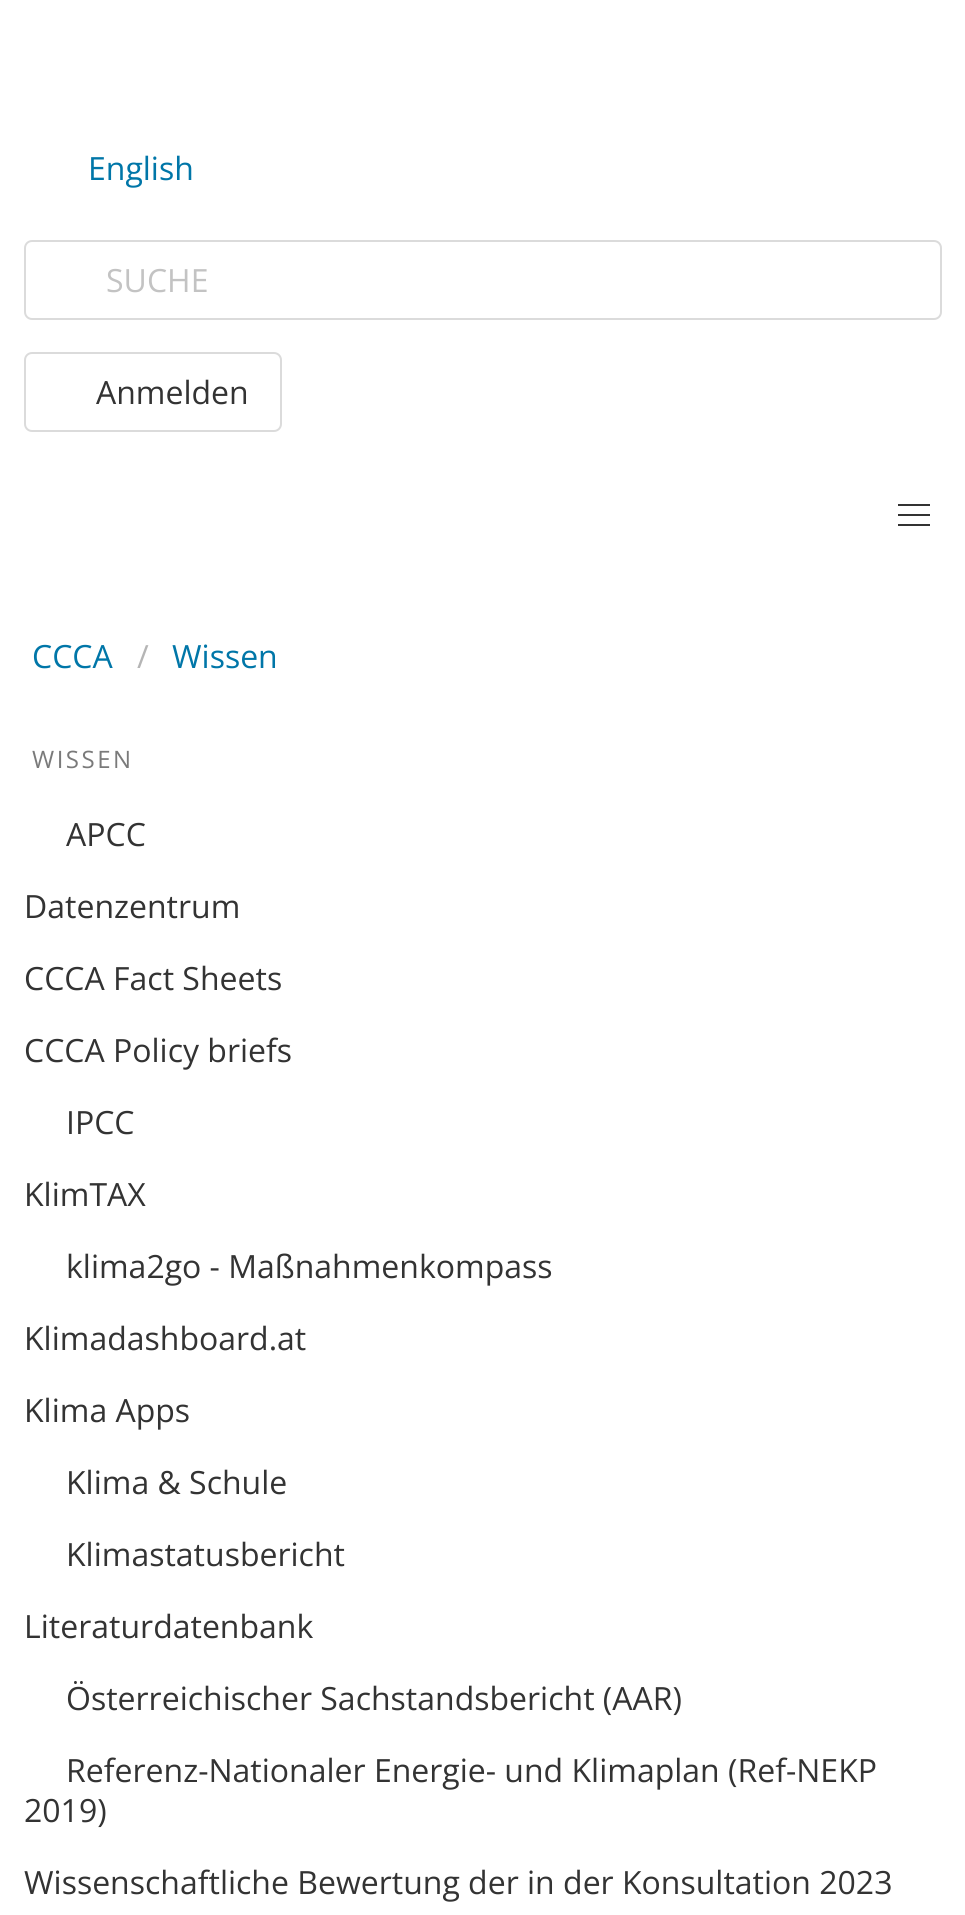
#include <cairo/cairo.h>
#include <math.h>
#include <stddef.h>


static void draw_spaced(cairo_t *cr, double x, double y, const char *s, double letter, double word) {
  cairo_move_to(cr, x, y);
  while (*s) {
    char ch[5] = {0};
    int n = 0;
    do ch[n++] = *s++; while ((*s & 0xC0) == 0x80);
    cairo_show_text(cr, ch);
    cairo_rel_move_to(cr, letter + word * (*ch == ' '), 0);
  }
}

static void rounded_rect(cairo_t *cr, double x, double y, double w, double h, double r) {
  cairo_new_sub_path(cr);
  cairo_arc(cr, x + w - r, y + h - r, r, 0, M_PI / 2);
  cairo_arc(cr, x + r, y + h - r, r, M_PI / 2, M_PI);
  cairo_arc(cr, x + r, y + r, r, M_PI, 1.5 * M_PI);
  cairo_arc(cr, x + w - r, y + r, r, 1.5 * M_PI, 2 * M_PI);
  cairo_close_path(cr);
}

static void draw(cairo_t *cr) {
  cairo_set_source_rgb(cr, 1, 1, 1);
  cairo_paint(cr);
  rounded_rect(cr, 25, 241, 916, 78, 7);
  cairo_set_source_rgb(cr, 219 / 255.0, 219 / 255.0, 219 / 255.0);
  cairo_stroke(cr);
  rounded_rect(cr, 25, 353, 256, 78, 7);
  cairo_stroke(cr);
  cairo_set_source_rgb(cr, 51 / 255.0, 51 / 255.0, 51 / 255.0);
  cairo_rectangle(cr, 898, 504, 32, 2);
  cairo_fill(cr);
  cairo_rectangle(cr, 898, 514, 32, 2);
  cairo_fill(cr);
  cairo_rectangle(cr, 898, 524, 32, 2);
  cairo_fill(cr);
  cairo_select_font_face(cr, "Open Sans", CAIRO_FONT_SLANT_NORMAL, CAIRO_FONT_WEIGHT_NORMAL);
  cairo_set_font_size(cr, 32);
  cairo_set_source_rgb(cr, 0, 118 / 255.0, 168 / 255.0);
  cairo_move_to(cr, 88, 180);
  cairo_show_text(cr, "English");
  cairo_set_source_rgb(cr, 195 / 255.0, 195 / 255.0, 195 / 255.0);
  cairo_move_to(cr, 106, 292);
  cairo_show_text(cr, "SUCHE");
  cairo_set_source_rgb(cr, 51 / 255.0, 51 / 255.0, 51 / 255.0);
  cairo_move_to(cr, 96, 404);
  cairo_show_text(cr, "Anmelden");
  cairo_set_source_rgb(cr, 0, 118 / 255.0, 168 / 255.0);
  cairo_move_to(cr, 32, 668);
  cairo_show_text(cr, "CCCA");
  cairo_set_source_rgb(cr, 181 / 255.0, 181 / 255.0, 181 / 255.0);
  cairo_move_to(cr, 137, 668);
  cairo_show_text(cr, "/");
  cairo_set_source_rgb(cr, 0, 118 / 255.0, 168 / 255.0);
  cairo_move_to(cr, 172, 668);
  cairo_show_text(cr, "Wissen");
  cairo_set_font_size(cr, 24);
  cairo_set_source_rgb(cr, 122 / 255.0, 122 / 255.0, 122 / 255.0);
  draw_spaced(cr, 32, 768, "WISSEN", 2.5, 0);
  cairo_set_font_size(cr, 32);
  cairo_set_source_rgb(cr, 51 / 255.0, 51 / 255.0, 51 / 255.0);
  cairo_move_to(cr, 66, 846);
  cairo_show_text(cr, "APCC");
  cairo_move_to(cr, 24, 918);
  cairo_show_text(cr, "Datenzentrum");
  cairo_move_to(cr, 24, 990);
  cairo_show_text(cr, "CCCA Fact Sheets");
  cairo_move_to(cr, 24, 1062);
  cairo_show_text(cr, "CCCA Policy briefs");
  cairo_move_to(cr, 66, 1134);
  cairo_show_text(cr, "IPCC");
  cairo_move_to(cr, 24, 1206);
  cairo_show_text(cr, "KlimTAX");
  cairo_move_to(cr, 66, 1278);
  cairo_show_text(cr, "klima2go - Maßnahmenkompass");
  cairo_move_to(cr, 24, 1350);
  cairo_show_text(cr, "Klimadashboard.at");
  cairo_move_to(cr, 24, 1422);
  cairo_show_text(cr, "Klima Apps");
  cairo_move_to(cr, 66, 1494);
  cairo_show_text(cr, "Klima & Schule");
  cairo_move_to(cr, 66, 1566);
  cairo_show_text(cr, "Klimastatusbericht");
  cairo_move_to(cr, 24, 1638);
  cairo_show_text(cr, "Literaturdatenbank");
  cairo_move_to(cr, 66, 1710);
  cairo_show_text(cr, "Österreichischer Sachstandsbericht (AAR)");
  cairo_move_to(cr, 66, 1782);
  cairo_show_text(cr, "Referenz-Nationaler Energie- und Klimaplan (Ref-NEKP");
  cairo_move_to(cr, 24, 1822);
  cairo_show_text(cr, "2019)");
  cairo_move_to(cr, 24, 1894);
  cairo_show_text(cr, "Wissenschaftliche Bewertung der in der Konsultation 2023");
}

int main(void) {
  cairo_surface_t *surface = cairo_image_surface_create(CAIRO_FORMAT_RGB24, 965, 1915);
  cairo_t *cr = cairo_create(surface);
  cairo_font_options_t *options = cairo_font_options_create();
  cairo_font_options_set_hint_metrics(options, CAIRO_HINT_METRICS_OFF);
  cairo_font_options_set_hint_style(options, CAIRO_HINT_STYLE_NONE);
  cairo_set_font_options(cr, options);
  cairo_set_miter_limit(cr, 4);
  draw(cr);
  cairo_surface_write_to_png(surface, "out.png");
  cairo_font_options_destroy(options);
  cairo_destroy(cr);
  cairo_surface_destroy(surface);
  return 0;
}
